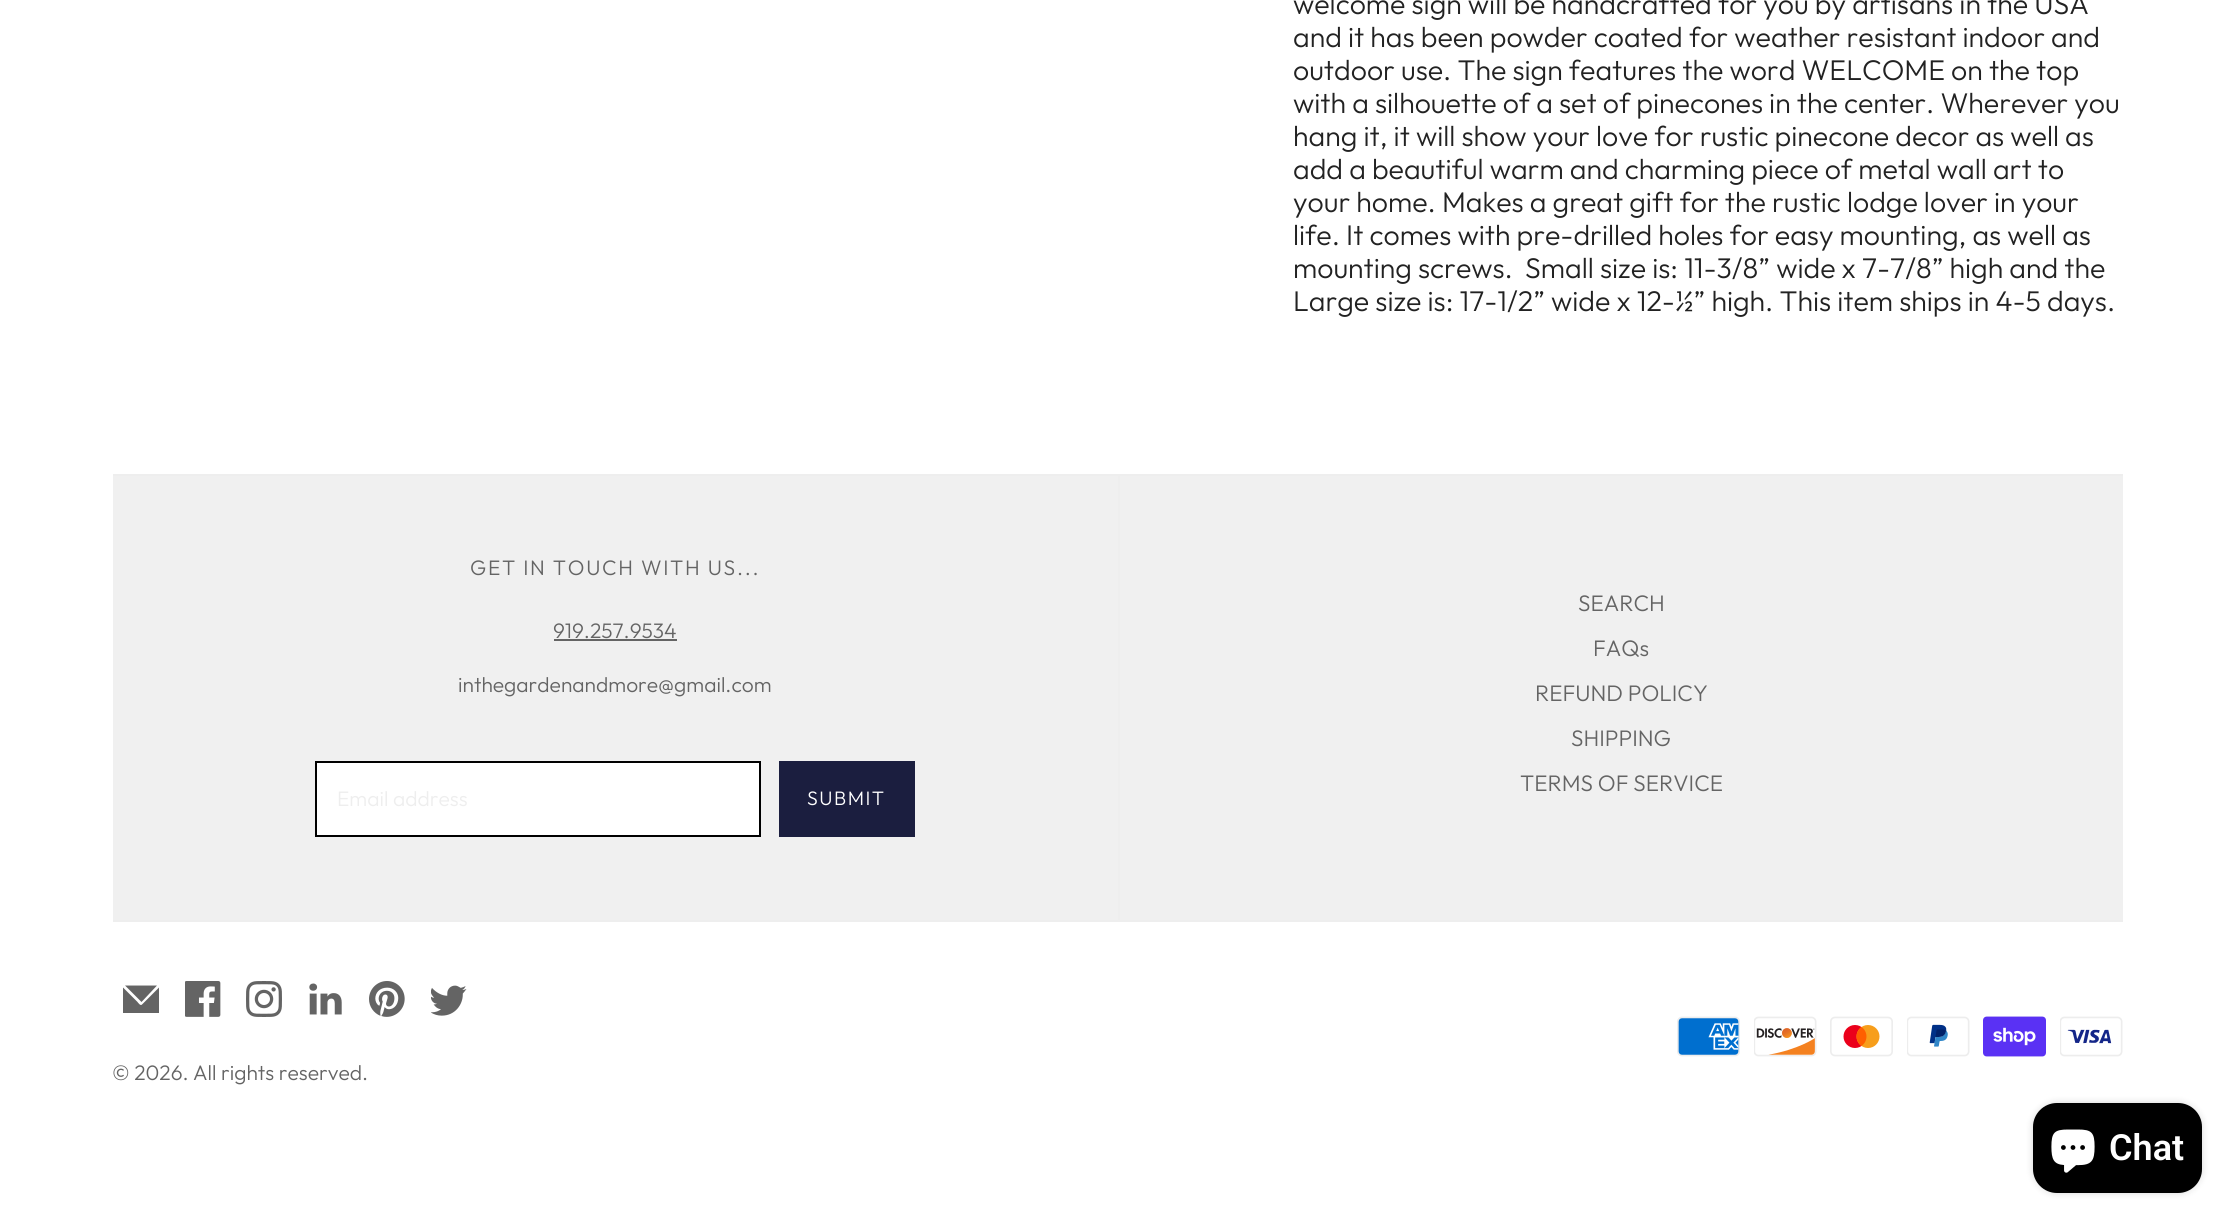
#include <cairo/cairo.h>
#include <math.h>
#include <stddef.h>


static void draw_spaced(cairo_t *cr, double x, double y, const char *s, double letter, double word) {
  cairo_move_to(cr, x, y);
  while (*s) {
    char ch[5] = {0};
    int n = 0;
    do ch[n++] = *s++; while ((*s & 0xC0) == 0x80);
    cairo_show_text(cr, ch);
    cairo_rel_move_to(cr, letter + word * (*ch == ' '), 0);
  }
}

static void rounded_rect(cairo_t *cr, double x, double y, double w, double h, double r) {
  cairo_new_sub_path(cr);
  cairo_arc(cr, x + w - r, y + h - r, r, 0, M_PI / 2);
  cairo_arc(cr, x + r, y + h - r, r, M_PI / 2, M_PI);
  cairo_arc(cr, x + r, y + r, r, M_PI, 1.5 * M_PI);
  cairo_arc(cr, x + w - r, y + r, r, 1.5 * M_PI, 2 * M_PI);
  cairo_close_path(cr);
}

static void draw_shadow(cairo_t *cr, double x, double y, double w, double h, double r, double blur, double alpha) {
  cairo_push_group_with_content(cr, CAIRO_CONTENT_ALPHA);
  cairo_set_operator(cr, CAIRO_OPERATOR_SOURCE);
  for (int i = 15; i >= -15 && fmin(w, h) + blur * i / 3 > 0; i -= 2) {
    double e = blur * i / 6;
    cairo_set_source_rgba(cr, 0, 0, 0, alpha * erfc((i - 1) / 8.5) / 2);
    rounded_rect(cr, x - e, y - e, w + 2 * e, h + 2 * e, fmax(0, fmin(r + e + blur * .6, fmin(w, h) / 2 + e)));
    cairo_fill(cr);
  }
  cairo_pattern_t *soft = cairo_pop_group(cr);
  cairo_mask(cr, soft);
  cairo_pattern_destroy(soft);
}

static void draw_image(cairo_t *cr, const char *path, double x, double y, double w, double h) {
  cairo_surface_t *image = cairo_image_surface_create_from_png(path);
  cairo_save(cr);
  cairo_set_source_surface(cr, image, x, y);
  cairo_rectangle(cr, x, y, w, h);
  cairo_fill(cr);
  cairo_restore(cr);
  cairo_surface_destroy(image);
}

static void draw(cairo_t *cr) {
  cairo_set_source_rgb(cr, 1, 1, 1);
  cairo_paint(cr);
  cairo_set_source_rgb(cr, 238 / 255.0, 238 / 255.0, 238 / 255.0);
  cairo_rectangle(cr, 113, 474, 2010, 2);
  cairo_fill(cr);
  cairo_rectangle(cr, 113, 920, 2010, 2);
  cairo_fill(cr);
  cairo_set_source_rgb(cr, 240 / 255.0, 240 / 255.0, 240 / 255.0);
  cairo_rectangle(cr, 113, 476, 1005, 444);
  cairo_fill(cr);
  cairo_set_source_rgb(cr, 100 / 255.0, 100 / 255.0, 100 / 255.0);
  cairo_rectangle(cr, 554, 639, 123, 2);
  cairo_fill(cr);
  cairo_set_source_rgb(cr, 1, 1, 1);
  cairo_rectangle(cr, 316, 762, 444, 74);
  cairo_fill_preserve(cr);
  cairo_set_source_rgb(cr, 0, 0, 0);
  cairo_stroke(cr);
  cairo_set_source_rgb(cr, 27 / 255.0, 30 / 255.0, 63 / 255.0);
  cairo_rectangle(cr, 779, 761, 136, 76);
  cairo_fill(cr);
  cairo_set_source_rgb(cr, 240 / 255.0, 240 / 255.0, 240 / 255.0);
  cairo_rectangle(cr, 1120, 476, 1003, 444);
  cairo_fill(cr);
  cairo_set_source_rgb(cr, 238 / 255.0, 238 / 255.0, 238 / 255.0);
  cairo_rectangle(cr, 1118, 476, 2, 444);
  cairo_fill(cr);
  draw_image(cr, "images/1.png", 1677, 1016, 63, 41);
  draw_image(cr, "images/2.png", 1754, 1016, 63, 41);
  draw_image(cr, "images/3.png", 1830, 1016, 63, 41);
  draw_image(cr, "images/4.png", 1907, 1016, 63, 41);
  draw_image(cr, "images/5.png", 1983, 1016, 63, 41);
  draw_image(cr, "images/6.png", 2060, 1016, 63, 41);
  cairo_set_source_rgb(cr, 100 / 255.0, 100 / 255.0, 100 / 255.0);
  cairo_new_path(cr);
  cairo_move_to(cr, 142, 1004.5);
  cairo_curve_to(cr, 140.5, 1006.5, 137.5, 1002, 137.5, 1002);
  cairo_line_to(cr, 123, 987.5);
  cairo_line_to(cr, 123, 1013);
  cairo_line_to(cr, 159, 1013);
  cairo_line_to(cr, 159, 987.5);
  cairo_close_path(cr);
  cairo_fill(cr);
  cairo_new_path(cr);
  cairo_move_to(cr, 157, 985.5);
  cairo_line_to(cr, 125, 985.5);
  cairo_line_to(cr, 141.5, 1002);
  cairo_close_path(cr);
  cairo_fill(cr);
  draw_image(cr, "images/7.png", 185, 981, 36, 36);
  draw_image(cr, "images/8.png", 246, 981, 36, 36);
  draw_image(cr, "images/9.png", 309, 983, 33, 32);
  draw_image(cr, "images/10.png", 369, 981, 36, 36);
  draw_image(cr, "images/11.png", 431, 985, 36, 31);
  cairo_set_source_rgb(cr, 0, 0, 0);
  draw_shadow(cr, 2033, 1103, 169, 90, 24, 4, 0.15);
  cairo_set_source_rgb(cr, 0, 0, 0);
  rounded_rect(cr, 2033, 1103, 169, 90, 24);
  cairo_fill(cr);
  draw_image(cr, "images/12.png", 2051, 1129, 44, 44);
  cairo_select_font_face(cr, "Outfit Light", CAIRO_FONT_SLANT_NORMAL, CAIRO_FONT_WEIGHT_NORMAL);
  cairo_set_font_size(cr, 28.5);
  cairo_set_source_rgb(cr, 34 / 255.0, 34 / 255.0, 34 / 255.0);
  cairo_move_to(cr, 1293, 14);
  cairo_show_text(cr, "welcome sign will be handcrafted for you by artisans in the USA");
  cairo_move_to(cr, 1293, 47);
  cairo_show_text(cr, "and it has been powder coated for weather resistant indoor and");
  cairo_move_to(cr, 1293, 80);
  cairo_show_text(cr, "outdoor use. The sign features the word WELCOME on the top");
  cairo_move_to(cr, 1293, 113);
  cairo_show_text(cr, "with a silhouette of a set of pinecones in the center. Wherever you");
  cairo_move_to(cr, 1293, 146);
  cairo_show_text(cr, "hang it, it will show your love for rustic pinecone decor as well as");
  cairo_move_to(cr, 1293, 179);
  cairo_show_text(cr, "add a beautiful warm and charming piece of metal wall art to");
  cairo_move_to(cr, 1293, 212);
  cairo_show_text(cr, "your home. Makes a great gift for the rustic lodge lover in your");
  cairo_move_to(cr, 1293, 245);
  cairo_show_text(cr, "life. It comes with pre-drilled holes for easy mounting, as well as");
  cairo_move_to(cr, 1293, 278);
  cairo_show_text(cr, "mounting screws.  Small size is: 11-3/8” wide x 7-7/8” high and the");
  cairo_move_to(cr, 1293, 311);
  cairo_show_text(cr, "Large size is: 17-1/2” wide x 12-½” high. This item ships in 4-5 days.");
  cairo_set_font_size(cr, 21);
  cairo_set_source_rgb(cr, 100 / 255.0, 100 / 255.0, 100 / 255.0);
  draw_spaced(cr, 470, 575, "GET IN TOUCH WITH US...", 1.7, 0);
  cairo_move_to(cr, 553, 638);
  cairo_show_text(cr, "919.257.9534");
  cairo_move_to(cr, 458, 692);
  cairo_show_text(cr, "inthegardenandmore@gmail.com");
  cairo_set_source_rgb(cr, 238 / 255.0, 238 / 255.0, 238 / 255.0);
  cairo_move_to(cr, 337, 806);
  cairo_show_text(cr, "Email address");
  cairo_set_font_size(cr, 19.5);
  cairo_set_source_rgb(cr, 1, 1, 1);
  draw_spaced(cr, 807, 805, "SUBMIT", 1.5, 0);
  cairo_set_font_size(cr, 22.5);
  cairo_set_source_rgb(cr, 100 / 255.0, 100 / 255.0, 100 / 255.0);
  cairo_move_to(cr, 1578, 611);
  cairo_show_text(cr, "SEARCH");
  cairo_move_to(cr, 1593, 656);
  cairo_show_text(cr, "FAQs");
  cairo_move_to(cr, 1535, 701);
  cairo_show_text(cr, "REFUND POLICY");
  cairo_move_to(cr, 1571, 746);
  cairo_show_text(cr, "SHIPPING");
  cairo_move_to(cr, 1520, 791);
  cairo_show_text(cr, "TERMS OF SERVICE");
  cairo_set_font_size(cr, 21);
  cairo_move_to(cr, 112, 1080);
  cairo_show_text(cr, "© 2026. All rights reserved.");
  cairo_select_font_face(cr, "Roboto SemiBold", CAIRO_FONT_SLANT_NORMAL, CAIRO_FONT_WEIGHT_NORMAL);
  cairo_set_font_size(cr, 36);
  cairo_set_source_rgb(cr, 1, 1, 1);
  cairo_move_to(cr, 2109, 1160);
  cairo_show_text(cr, "Chat");
}

int main(void) {
  cairo_surface_t *surface = cairo_image_surface_create(CAIRO_FORMAT_RGB24, 2235, 1224);
  cairo_t *cr = cairo_create(surface);
  cairo_font_options_t *options = cairo_font_options_create();
  cairo_font_options_set_hint_metrics(options, CAIRO_HINT_METRICS_OFF);
  cairo_font_options_set_hint_style(options, CAIRO_HINT_STYLE_NONE);
  cairo_set_font_options(cr, options);
  cairo_set_miter_limit(cr, 4);
  draw(cr);
  cairo_surface_write_to_png(surface, "out.png");
  cairo_font_options_destroy(options);
  cairo_destroy(cr);
  cairo_surface_destroy(surface);
  return 0;
}
